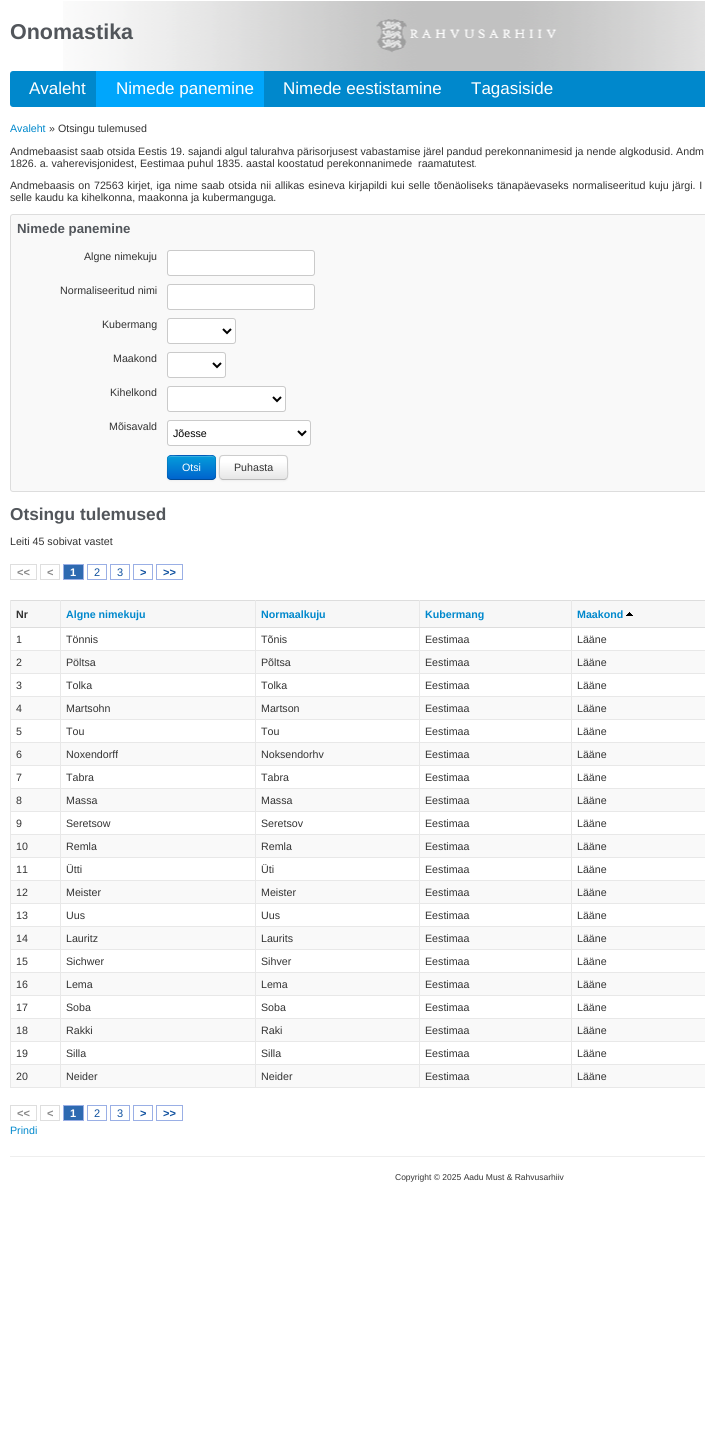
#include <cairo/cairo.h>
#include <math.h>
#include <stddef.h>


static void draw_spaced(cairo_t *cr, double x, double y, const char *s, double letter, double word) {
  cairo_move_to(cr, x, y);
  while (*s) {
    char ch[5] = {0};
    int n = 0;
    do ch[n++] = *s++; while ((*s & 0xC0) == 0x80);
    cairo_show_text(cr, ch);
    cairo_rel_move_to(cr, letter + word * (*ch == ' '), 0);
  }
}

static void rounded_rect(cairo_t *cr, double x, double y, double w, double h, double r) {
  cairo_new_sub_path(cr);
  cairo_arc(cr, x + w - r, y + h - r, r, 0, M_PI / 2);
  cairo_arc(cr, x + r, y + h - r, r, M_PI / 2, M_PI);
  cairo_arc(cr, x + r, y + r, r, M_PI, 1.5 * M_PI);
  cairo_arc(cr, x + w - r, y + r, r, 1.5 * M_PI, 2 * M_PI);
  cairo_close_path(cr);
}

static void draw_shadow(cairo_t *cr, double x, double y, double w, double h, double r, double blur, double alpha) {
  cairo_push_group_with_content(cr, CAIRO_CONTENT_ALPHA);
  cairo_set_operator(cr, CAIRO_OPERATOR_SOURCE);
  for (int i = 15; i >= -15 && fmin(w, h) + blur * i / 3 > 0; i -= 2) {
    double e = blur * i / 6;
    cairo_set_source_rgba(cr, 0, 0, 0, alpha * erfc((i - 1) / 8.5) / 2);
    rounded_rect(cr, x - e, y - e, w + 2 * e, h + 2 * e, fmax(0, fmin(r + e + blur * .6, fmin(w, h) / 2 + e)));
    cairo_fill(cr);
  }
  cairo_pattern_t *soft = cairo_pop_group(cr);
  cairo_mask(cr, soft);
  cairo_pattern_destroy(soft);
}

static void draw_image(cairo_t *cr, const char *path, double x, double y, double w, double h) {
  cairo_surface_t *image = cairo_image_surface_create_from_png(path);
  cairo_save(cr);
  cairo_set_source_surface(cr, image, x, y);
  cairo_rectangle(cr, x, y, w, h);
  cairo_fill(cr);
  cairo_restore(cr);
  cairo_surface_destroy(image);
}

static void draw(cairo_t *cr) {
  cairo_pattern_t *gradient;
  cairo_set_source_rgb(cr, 1, 1, 1);
  cairo_paint(cr);
  draw_image(cr, "images/1.png", 63, 1, 642, 70);
  cairo_set_source_rgb(cr, 0, 136 / 255.0, 204 / 255.0);
  rounded_rect(cr, 10, 71, 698, 36, 3);
  cairo_fill(cr);
  cairo_set_source_rgb(cr, 0, 166 / 255.0, 252 / 255.0);
  cairo_rectangle(cr, 96, 71, 168, 36);
  cairo_fill(cr);
  cairo_set_source_rgb(cr, 249 / 255.0, 249 / 255.0, 249 / 255.0);
  rounded_rect(cr, 10.5, 214.5, 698, 277, 2.5);
  cairo_fill_preserve(cr);
  cairo_set_source_rgb(cr, 221 / 255.0, 221 / 255.0, 221 / 255.0);
  cairo_set_line_width(cr, 1);
  cairo_stroke(cr);
  cairo_set_source_rgb(cr, 1, 1, 1);
  rounded_rect(cr, 167.5, 250.5, 147, 25, 2.5);
  cairo_fill_preserve(cr);
  cairo_set_source_rgb(cr, 202 / 255.0, 202 / 255.0, 202 / 255.0);
  cairo_stroke(cr);
  cairo_set_source_rgb(cr, 1, 1, 1);
  rounded_rect(cr, 167.5, 284.5, 147, 25, 2.5);
  cairo_fill_preserve(cr);
  cairo_set_source_rgb(cr, 202 / 255.0, 202 / 255.0, 202 / 255.0);
  cairo_stroke(cr);
  cairo_set_source_rgb(cr, 1, 1, 1);
  rounded_rect(cr, 167.5, 318.5, 68, 25, 2.5);
  cairo_fill_preserve(cr);
  cairo_set_source_rgb(cr, 202 / 255.0, 202 / 255.0, 202 / 255.0);
  cairo_stroke(cr);
  cairo_new_path(cr);
  cairo_move_to(cr, 223, 329);
  cairo_line_to(cr, 227, 333);
  cairo_line_to(cr, 231, 329);
  cairo_set_source_rgb(cr, 0, 0, 0);
  cairo_set_line_width(cr, 2);
  cairo_stroke(cr);
  cairo_set_source_rgb(cr, 1, 1, 1);
  rounded_rect(cr, 167.5, 352.5, 58, 25, 2.5);
  cairo_fill_preserve(cr);
  cairo_set_source_rgb(cr, 202 / 255.0, 202 / 255.0, 202 / 255.0);
  cairo_set_line_width(cr, 1);
  cairo_stroke(cr);
  cairo_new_path(cr);
  cairo_move_to(cr, 213, 363);
  cairo_line_to(cr, 217, 367);
  cairo_line_to(cr, 221, 363);
  cairo_set_source_rgb(cr, 0, 0, 0);
  cairo_set_line_width(cr, 2);
  cairo_stroke(cr);
  cairo_set_source_rgb(cr, 1, 1, 1);
  rounded_rect(cr, 167.5, 386.5, 118, 25, 2.5);
  cairo_fill_preserve(cr);
  cairo_set_source_rgb(cr, 202 / 255.0, 202 / 255.0, 202 / 255.0);
  cairo_set_line_width(cr, 1);
  cairo_stroke(cr);
  cairo_new_path(cr);
  cairo_move_to(cr, 273, 397);
  cairo_line_to(cr, 277, 401);
  cairo_line_to(cr, 281, 397);
  cairo_set_source_rgb(cr, 0, 0, 0);
  cairo_set_line_width(cr, 2);
  cairo_stroke(cr);
  cairo_set_source_rgb(cr, 1, 1, 1);
  rounded_rect(cr, 167.5, 420.5, 143, 25, 2.5);
  cairo_fill_preserve(cr);
  cairo_set_source_rgb(cr, 202 / 255.0, 202 / 255.0, 202 / 255.0);
  cairo_set_line_width(cr, 1);
  cairo_stroke(cr);
  cairo_new_path(cr);
  cairo_move_to(cr, 298, 431);
  cairo_line_to(cr, 302, 435);
  cairo_line_to(cr, 306, 431);
  cairo_set_source_rgb(cr, 0, 0, 0);
  cairo_set_line_width(cr, 2);
  cairo_stroke(cr);
  cairo_set_source_rgb(cr, 0, 0, 0);
  draw_shadow(cr, 167, 456, 49, 25, 4, 1, 0.05);
  cairo_set_source_rgb(cr, 0, 100 / 255.0, 205 / 255.0);
  rounded_rect(cr, 167, 455, 49, 25, 4);
  cairo_fill(cr);
  cairo_save(cr);
  rounded_rect(cr, 167, 455, 49, 25, 4);
  cairo_clip(cr);
  gradient = cairo_pattern_create_linear(192, 456, 192, 479);
  cairo_pattern_add_color_stop_rgba(gradient, 0, 4 / 255.0, 156 / 255.0, 219 / 255.0, 1);
  cairo_pattern_add_color_stop_rgba(gradient, 1, 0, 100 / 255.0, 205 / 255.0, 1);
  cairo_set_source(cr, gradient);
  cairo_pattern_destroy(gradient);
  cairo_rectangle(cr, 167, 456, 49, 23);
  cairo_fill(cr);
  cairo_restore(cr);
  cairo_set_source_rgb(cr, 54 / 255.0, 175 / 255.0, 226 / 255.0);
  cairo_new_path(cr);
  cairo_move_to(cr, 171, 457);
  cairo_line_to(cr, 212, 457);
  cairo_curve_to(cr, 214, 457, 215, 458, 215, 460);
  cairo_curve_to(cr, 215, 454, 209, 456, 205, 456);
  cairo_line_to(cr, 178, 456);
  cairo_curve_to(cr, 174, 456, 168, 454, 168, 460);
  cairo_curve_to(cr, 168, 458, 169, 457, 171, 457);
  cairo_close_path(cr);
  cairo_fill(cr);
  cairo_new_path(cr);
  cairo_move_to(cr, 214.5, 478.5);
  cairo_curve_to(cr, 214, 479, 213, 479.5, 212, 479.5);
  cairo_line_to(cr, 171, 479.5);
  cairo_curve_to(cr, 170, 479.5, 169, 479, 168.5, 478.5);
  cairo_set_source_rgba(cr, 0, 0, 0, 0.25);
  cairo_set_line_width(cr, 1);
  cairo_stroke(cr);
  cairo_new_path(cr);
  cairo_move_to(cr, 168.5, 478.5);
  cairo_curve_to(cr, 166.5, 476, 167.5, 470, 167.5, 467.5);
  cairo_curve_to(cr, 167.5, 455.5, 166, 455.5, 178, 455.5);
  cairo_line_to(cr, 205, 455.5);
  cairo_curve_to(cr, 217, 455.5, 215.5, 455.5, 215.5, 467.5);
  cairo_curve_to(cr, 215.5, 470, 216.5, 476, 214.5, 478.5);
  cairo_set_source_rgba(cr, 0, 0, 0, 0.1);
  cairo_stroke(cr);
  cairo_set_source_rgb(cr, 0, 0, 0);
  draw_shadow(cr, 219, 456, 69, 25, 4, 1, 0.05);
  cairo_set_source_rgb(cr, 230 / 255.0, 230 / 255.0, 230 / 255.0);
  rounded_rect(cr, 219, 455, 69, 25, 4);
  cairo_fill(cr);
  cairo_save(cr);
  rounded_rect(cr, 219, 455, 69, 25, 4);
  cairo_clip(cr);
  gradient = cairo_pattern_create_linear(254, 456, 254, 479);
  cairo_pattern_add_color_stop_rgba(gradient, 0, 1, 1, 1, 1);
  cairo_pattern_add_color_stop_rgba(gradient, 0.25, 1, 1, 1, 1);
  cairo_pattern_add_color_stop_rgba(gradient, 1, 230 / 255.0, 230 / 255.0, 230 / 255.0, 1);
  cairo_set_source(cr, gradient);
  cairo_pattern_destroy(gradient);
  cairo_rectangle(cr, 220, 456, 67, 23);
  cairo_fill(cr);
  cairo_restore(cr);
  cairo_set_source_rgba(cr, 1, 1, 1, 0.2);
  cairo_new_path(cr);
  cairo_move_to(cr, 223, 457);
  cairo_line_to(cr, 284, 457);
  cairo_curve_to(cr, 286, 457, 287, 458, 287, 460);
  cairo_curve_to(cr, 287, 453, 278, 456, 274, 456);
  cairo_line_to(cr, 233, 456);
  cairo_curve_to(cr, 229, 456, 220, 453, 220, 460);
  cairo_curve_to(cr, 220, 458, 221, 457, 223, 457);
  cairo_close_path(cr);
  cairo_fill(cr);
  cairo_new_path(cr);
  cairo_move_to(cr, 286.5, 478.5);
  cairo_line_to(cr, 284.5, 479.5);
  cairo_line_to(cr, 222.5, 479.5);
  cairo_line_to(cr, 220.5, 478.5);
  cairo_set_source_rgb(cr, 187 / 255.0, 187 / 255.0, 187 / 255.0);
  cairo_stroke(cr);
  cairo_new_path(cr);
  cairo_move_to(cr, 220.5, 478.5);
  cairo_curve_to(cr, 218.5, 476, 219.5, 470, 219.5, 467.5);
  cairo_curve_to(cr, 219.5, 453.5, 218.5, 455.5, 233, 455.5);
  cairo_line_to(cr, 274, 455.5);
  cairo_curve_to(cr, 288.5, 455.5, 287.5, 453.5, 287.5, 467.5);
  cairo_curve_to(cr, 287.5, 470, 288.5, 476, 286.5, 478.5);
  cairo_set_source_rgb(cr, 204 / 255.0, 204 / 255.0, 204 / 255.0);
  cairo_stroke(cr);
  cairo_rectangle(cr, 10.5, 564.5, 26, 15);
  cairo_set_source_rgb(cr, 222 / 255.0, 222 / 255.0, 222 / 255.0);
  cairo_stroke(cr);
  cairo_rectangle(cr, 40.5, 564.5, 19, 15);
  cairo_stroke(cr);
  cairo_set_source_rgb(cr, 46 / 255.0, 106 / 255.0, 177 / 255.0);
  cairo_rectangle(cr, 63.5, 564.5, 20, 15);
  cairo_fill_preserve(cr);
  cairo_set_source_rgb(cr, 154 / 255.0, 175 / 255.0, 229 / 255.0);
  cairo_stroke(cr);
  cairo_rectangle(cr, 87.5, 564.5, 19, 15);
  cairo_stroke(cr);
  cairo_rectangle(cr, 110.5, 564.5, 19, 15);
  cairo_stroke(cr);
  cairo_rectangle(cr, 133.5, 564.5, 19, 15);
  cairo_stroke(cr);
  cairo_rectangle(cr, 156.5, 564.5, 26, 15);
  cairo_stroke(cr);
  cairo_set_source_rgb(cr, 247 / 255.0, 247 / 255.0, 247 / 255.0);
  cairo_rectangle(cr, 11, 601, 49, 26);
  cairo_fill(cr);
  cairo_set_source_rgb(cr, 221 / 255.0, 221 / 255.0, 221 / 255.0);
  cairo_rectangle(cr, 10, 600, 695, 1);
  cairo_fill(cr);
  cairo_set_source_rgb(cr, 232 / 255.0, 232 / 255.0, 232 / 255.0);
  cairo_rectangle(cr, 571, 650, 134, 1);
  cairo_fill(cr);
  cairo_set_source_rgb(cr, 249 / 255.0, 249 / 255.0, 249 / 255.0);
  cairo_rectangle(cr, 11, 651, 694, 22);
  cairo_fill(cr);
  cairo_set_source_rgb(cr, 232 / 255.0, 232 / 255.0, 232 / 255.0);
  cairo_rectangle(cr, 571, 673, 134, 1);
  cairo_fill(cr);
  cairo_rectangle(cr, 571, 696, 134, 1);
  cairo_fill(cr);
  cairo_set_source_rgb(cr, 249 / 255.0, 249 / 255.0, 249 / 255.0);
  cairo_rectangle(cr, 11, 697, 694, 22);
  cairo_fill(cr);
  cairo_set_source_rgb(cr, 232 / 255.0, 232 / 255.0, 232 / 255.0);
  cairo_rectangle(cr, 571, 719, 134, 1);
  cairo_fill(cr);
  cairo_rectangle(cr, 571, 742, 134, 1);
  cairo_fill(cr);
  cairo_set_source_rgb(cr, 249 / 255.0, 249 / 255.0, 249 / 255.0);
  cairo_rectangle(cr, 11, 743, 694, 22);
  cairo_fill(cr);
  cairo_set_source_rgb(cr, 232 / 255.0, 232 / 255.0, 232 / 255.0);
  cairo_rectangle(cr, 571, 765, 134, 1);
  cairo_fill(cr);
  cairo_rectangle(cr, 571, 788, 134, 1);
  cairo_fill(cr);
  cairo_set_source_rgb(cr, 249 / 255.0, 249 / 255.0, 249 / 255.0);
  cairo_rectangle(cr, 11, 789, 694, 22);
  cairo_fill(cr);
  cairo_set_source_rgb(cr, 232 / 255.0, 232 / 255.0, 232 / 255.0);
  cairo_rectangle(cr, 571, 811, 134, 1);
  cairo_fill(cr);
  cairo_rectangle(cr, 571, 834, 134, 1);
  cairo_fill(cr);
  cairo_set_source_rgb(cr, 249 / 255.0, 249 / 255.0, 249 / 255.0);
  cairo_rectangle(cr, 11, 835, 694, 22);
  cairo_fill(cr);
  cairo_set_source_rgb(cr, 232 / 255.0, 232 / 255.0, 232 / 255.0);
  cairo_rectangle(cr, 571, 857, 134, 1);
  cairo_fill(cr);
  cairo_rectangle(cr, 571, 880, 134, 1);
  cairo_fill(cr);
  cairo_set_source_rgb(cr, 249 / 255.0, 249 / 255.0, 249 / 255.0);
  cairo_rectangle(cr, 11, 881, 694, 22);
  cairo_fill(cr);
  cairo_set_source_rgb(cr, 232 / 255.0, 232 / 255.0, 232 / 255.0);
  cairo_rectangle(cr, 571, 903, 134, 1);
  cairo_fill(cr);
  cairo_rectangle(cr, 571, 926, 134, 1);
  cairo_fill(cr);
  cairo_set_source_rgb(cr, 249 / 255.0, 249 / 255.0, 249 / 255.0);
  cairo_rectangle(cr, 11, 927, 694, 22);
  cairo_fill(cr);
  cairo_set_source_rgb(cr, 232 / 255.0, 232 / 255.0, 232 / 255.0);
  cairo_rectangle(cr, 571, 949, 134, 1);
  cairo_fill(cr);
  cairo_rectangle(cr, 571, 972, 134, 1);
  cairo_fill(cr);
  cairo_set_source_rgb(cr, 249 / 255.0, 249 / 255.0, 249 / 255.0);
  cairo_rectangle(cr, 11, 973, 694, 22);
  cairo_fill(cr);
  cairo_set_source_rgb(cr, 232 / 255.0, 232 / 255.0, 232 / 255.0);
  cairo_rectangle(cr, 571, 995, 134, 1);
  cairo_fill(cr);
  cairo_rectangle(cr, 571, 1018, 134, 1);
  cairo_fill(cr);
  cairo_set_source_rgb(cr, 249 / 255.0, 249 / 255.0, 249 / 255.0);
  cairo_rectangle(cr, 11, 1019, 694, 22);
  cairo_fill(cr);
  cairo_set_source_rgb(cr, 232 / 255.0, 232 / 255.0, 232 / 255.0);
  cairo_rectangle(cr, 571, 1041, 134, 1);
  cairo_fill(cr);
  cairo_rectangle(cr, 571, 1064, 134, 1);
  cairo_fill(cr);
  cairo_set_source_rgb(cr, 249 / 255.0, 249 / 255.0, 249 / 255.0);
  cairo_rectangle(cr, 11, 1065, 694, 22);
  cairo_fill(cr);
  cairo_set_source_rgb(cr, 232 / 255.0, 232 / 255.0, 232 / 255.0);
  cairo_rectangle(cr, 571, 1087, 134, 1);
  cairo_fill(cr);
  cairo_rectangle(cr, 571, 1064, 1, 24);
  cairo_fill(cr);
  cairo_rectangle(cr, 419, 1064, 153, 1);
  cairo_fill(cr);
  cairo_rectangle(cr, 571, 1041, 1, 24);
  cairo_fill(cr);
  cairo_rectangle(cr, 419, 1041, 153, 1);
  cairo_fill(cr);
  cairo_rectangle(cr, 571, 1018, 1, 24);
  cairo_fill(cr);
  cairo_rectangle(cr, 419, 1018, 153, 1);
  cairo_fill(cr);
  cairo_rectangle(cr, 571, 995, 1, 24);
  cairo_fill(cr);
  cairo_rectangle(cr, 419, 995, 153, 1);
  cairo_fill(cr);
  cairo_rectangle(cr, 571, 972, 1, 24);
  cairo_fill(cr);
  cairo_rectangle(cr, 419, 972, 153, 1);
  cairo_fill(cr);
  cairo_rectangle(cr, 571, 949, 1, 24);
  cairo_fill(cr);
  cairo_rectangle(cr, 419, 949, 153, 1);
  cairo_fill(cr);
  cairo_rectangle(cr, 571, 926, 1, 24);
  cairo_fill(cr);
  cairo_rectangle(cr, 419, 926, 153, 1);
  cairo_fill(cr);
  cairo_rectangle(cr, 571, 903, 1, 24);
  cairo_fill(cr);
  cairo_rectangle(cr, 419, 903, 153, 1);
  cairo_fill(cr);
  cairo_rectangle(cr, 571, 880, 1, 24);
  cairo_fill(cr);
  cairo_rectangle(cr, 419, 880, 153, 1);
  cairo_fill(cr);
  cairo_rectangle(cr, 571, 857, 1, 24);
  cairo_fill(cr);
  cairo_rectangle(cr, 419, 857, 153, 1);
  cairo_fill(cr);
  cairo_rectangle(cr, 571, 834, 1, 24);
  cairo_fill(cr);
  cairo_rectangle(cr, 419, 834, 153, 1);
  cairo_fill(cr);
  cairo_rectangle(cr, 571, 811, 1, 24);
  cairo_fill(cr);
  cairo_rectangle(cr, 419, 811, 153, 1);
  cairo_fill(cr);
  cairo_rectangle(cr, 571, 788, 1, 24);
  cairo_fill(cr);
  cairo_rectangle(cr, 419, 788, 153, 1);
  cairo_fill(cr);
  cairo_rectangle(cr, 571, 765, 1, 24);
  cairo_fill(cr);
  cairo_rectangle(cr, 419, 765, 153, 1);
  cairo_fill(cr);
  cairo_rectangle(cr, 571, 742, 1, 24);
  cairo_fill(cr);
  cairo_rectangle(cr, 419, 742, 153, 1);
  cairo_fill(cr);
  cairo_rectangle(cr, 571, 719, 1, 24);
  cairo_fill(cr);
  cairo_rectangle(cr, 419, 719, 153, 1);
  cairo_fill(cr);
  cairo_rectangle(cr, 571, 696, 1, 24);
  cairo_fill(cr);
  cairo_rectangle(cr, 419, 696, 153, 1);
  cairo_fill(cr);
  cairo_rectangle(cr, 571, 673, 1, 24);
  cairo_fill(cr);
  cairo_rectangle(cr, 419, 673, 153, 1);
  cairo_fill(cr);
  cairo_rectangle(cr, 571, 650, 1, 24);
  cairo_fill(cr);
  cairo_rectangle(cr, 419, 650, 153, 1);
  cairo_fill(cr);
  cairo_rectangle(cr, 571, 627, 1, 24);
  cairo_fill(cr);
  cairo_set_source_rgb(cr, 221 / 255.0, 221 / 255.0, 221 / 255.0);
  cairo_rectangle(cr, 571, 627, 134, 1);
  cairo_fill(cr);
  cairo_set_source_rgb(cr, 232 / 255.0, 232 / 255.0, 232 / 255.0);
  cairo_rectangle(cr, 571, 600, 1, 28);
  cairo_fill(cr);
  cairo_rectangle(cr, 419, 1087, 153, 1);
  cairo_fill(cr);
  cairo_rectangle(cr, 419, 1064, 1, 24);
  cairo_fill(cr);
  cairo_rectangle(cr, 255, 1064, 165, 1);
  cairo_fill(cr);
  cairo_rectangle(cr, 419, 1041, 1, 24);
  cairo_fill(cr);
  cairo_rectangle(cr, 255, 1041, 165, 1);
  cairo_fill(cr);
  cairo_rectangle(cr, 419, 1018, 1, 24);
  cairo_fill(cr);
  cairo_rectangle(cr, 255, 1018, 165, 1);
  cairo_fill(cr);
  cairo_rectangle(cr, 419, 995, 1, 24);
  cairo_fill(cr);
  cairo_rectangle(cr, 255, 995, 165, 1);
  cairo_fill(cr);
  cairo_rectangle(cr, 419, 972, 1, 24);
  cairo_fill(cr);
  cairo_rectangle(cr, 255, 972, 165, 1);
  cairo_fill(cr);
  cairo_rectangle(cr, 419, 949, 1, 24);
  cairo_fill(cr);
  cairo_rectangle(cr, 255, 949, 165, 1);
  cairo_fill(cr);
  cairo_rectangle(cr, 419, 926, 1, 24);
  cairo_fill(cr);
  cairo_rectangle(cr, 255, 926, 165, 1);
  cairo_fill(cr);
  cairo_rectangle(cr, 419, 903, 1, 24);
  cairo_fill(cr);
  cairo_rectangle(cr, 255, 903, 165, 1);
  cairo_fill(cr);
  cairo_rectangle(cr, 419, 880, 1, 24);
  cairo_fill(cr);
  cairo_rectangle(cr, 255, 880, 165, 1);
  cairo_fill(cr);
  cairo_rectangle(cr, 419, 857, 1, 24);
  cairo_fill(cr);
  cairo_rectangle(cr, 255, 857, 165, 1);
  cairo_fill(cr);
  cairo_rectangle(cr, 419, 834, 1, 24);
  cairo_fill(cr);
  cairo_rectangle(cr, 255, 834, 165, 1);
  cairo_fill(cr);
  cairo_rectangle(cr, 419, 811, 1, 24);
  cairo_fill(cr);
  cairo_rectangle(cr, 255, 811, 165, 1);
  cairo_fill(cr);
  cairo_rectangle(cr, 419, 788, 1, 24);
  cairo_fill(cr);
  cairo_rectangle(cr, 255, 788, 165, 1);
  cairo_fill(cr);
  cairo_rectangle(cr, 419, 765, 1, 24);
  cairo_fill(cr);
  cairo_rectangle(cr, 255, 765, 165, 1);
  cairo_fill(cr);
  cairo_rectangle(cr, 419, 742, 1, 24);
  cairo_fill(cr);
  cairo_rectangle(cr, 255, 742, 165, 1);
  cairo_fill(cr);
  cairo_rectangle(cr, 419, 719, 1, 24);
  cairo_fill(cr);
  cairo_rectangle(cr, 255, 719, 165, 1);
  cairo_fill(cr);
  cairo_rectangle(cr, 419, 696, 1, 24);
  cairo_fill(cr);
  cairo_rectangle(cr, 255, 696, 165, 1);
  cairo_fill(cr);
  cairo_rectangle(cr, 419, 673, 1, 24);
  cairo_fill(cr);
  cairo_rectangle(cr, 255, 673, 165, 1);
  cairo_fill(cr);
  cairo_rectangle(cr, 419, 650, 1, 24);
  cairo_fill(cr);
  cairo_rectangle(cr, 255, 650, 165, 1);
  cairo_fill(cr);
  cairo_rectangle(cr, 419, 627, 1, 24);
  cairo_fill(cr);
  cairo_set_source_rgb(cr, 221 / 255.0, 221 / 255.0, 221 / 255.0);
  cairo_rectangle(cr, 419, 627, 153, 1);
  cairo_fill(cr);
  cairo_set_source_rgb(cr, 232 / 255.0, 232 / 255.0, 232 / 255.0);
  cairo_rectangle(cr, 419, 600, 1, 28);
  cairo_fill(cr);
  cairo_rectangle(cr, 255, 1087, 165, 1);
  cairo_fill(cr);
  cairo_rectangle(cr, 255, 1064, 1, 24);
  cairo_fill(cr);
  cairo_rectangle(cr, 60, 1064, 196, 1);
  cairo_fill(cr);
  cairo_rectangle(cr, 255, 1041, 1, 24);
  cairo_fill(cr);
  cairo_rectangle(cr, 60, 1041, 196, 1);
  cairo_fill(cr);
  cairo_rectangle(cr, 255, 1018, 1, 24);
  cairo_fill(cr);
  cairo_rectangle(cr, 60, 1018, 196, 1);
  cairo_fill(cr);
  cairo_rectangle(cr, 255, 995, 1, 24);
  cairo_fill(cr);
  cairo_rectangle(cr, 60, 995, 196, 1);
  cairo_fill(cr);
  cairo_rectangle(cr, 255, 972, 1, 24);
  cairo_fill(cr);
  cairo_rectangle(cr, 60, 972, 196, 1);
  cairo_fill(cr);
  cairo_rectangle(cr, 255, 949, 1, 24);
  cairo_fill(cr);
  cairo_rectangle(cr, 60, 949, 196, 1);
  cairo_fill(cr);
  cairo_rectangle(cr, 255, 926, 1, 24);
  cairo_fill(cr);
  cairo_rectangle(cr, 60, 926, 196, 1);
  cairo_fill(cr);
  cairo_rectangle(cr, 255, 903, 1, 24);
  cairo_fill(cr);
  cairo_rectangle(cr, 60, 903, 196, 1);
  cairo_fill(cr);
  cairo_rectangle(cr, 255, 880, 1, 24);
  cairo_fill(cr);
  cairo_rectangle(cr, 60, 880, 196, 1);
  cairo_fill(cr);
  cairo_rectangle(cr, 255, 857, 1, 24);
  cairo_fill(cr);
  cairo_rectangle(cr, 60, 857, 196, 1);
  cairo_fill(cr);
  cairo_rectangle(cr, 255, 834, 1, 24);
  cairo_fill(cr);
  cairo_rectangle(cr, 60, 834, 196, 1);
  cairo_fill(cr);
  cairo_rectangle(cr, 255, 811, 1, 24);
  cairo_fill(cr);
  cairo_rectangle(cr, 60, 811, 196, 1);
  cairo_fill(cr);
  cairo_rectangle(cr, 255, 788, 1, 24);
  cairo_fill(cr);
  cairo_rectangle(cr, 60, 788, 196, 1);
  cairo_fill(cr);
  cairo_rectangle(cr, 255, 765, 1, 24);
  cairo_fill(cr);
  cairo_rectangle(cr, 60, 765, 196, 1);
  cairo_fill(cr);
  cairo_rectangle(cr, 255, 742, 1, 24);
  cairo_fill(cr);
  cairo_rectangle(cr, 60, 742, 196, 1);
  cairo_fill(cr);
  cairo_rectangle(cr, 255, 719, 1, 24);
  cairo_fill(cr);
  cairo_rectangle(cr, 60, 719, 196, 1);
  cairo_fill(cr);
  cairo_rectangle(cr, 255, 696, 1, 24);
  cairo_fill(cr);
  cairo_rectangle(cr, 60, 696, 196, 1);
  cairo_fill(cr);
  cairo_rectangle(cr, 255, 673, 1, 24);
  cairo_fill(cr);
  cairo_rectangle(cr, 60, 673, 196, 1);
  cairo_fill(cr);
  cairo_rectangle(cr, 255, 650, 1, 24);
  cairo_fill(cr);
  cairo_rectangle(cr, 60, 650, 196, 1);
  cairo_fill(cr);
  cairo_rectangle(cr, 255, 627, 1, 24);
  cairo_fill(cr);
  cairo_set_source_rgb(cr, 221 / 255.0, 221 / 255.0, 221 / 255.0);
  cairo_rectangle(cr, 255, 627, 165, 1);
  cairo_fill(cr);
  cairo_set_source_rgb(cr, 232 / 255.0, 232 / 255.0, 232 / 255.0);
  cairo_rectangle(cr, 255, 600, 1, 28);
  cairo_fill(cr);
  cairo_rectangle(cr, 60, 1087, 196, 1);
  cairo_fill(cr);
  cairo_rectangle(cr, 60, 1064, 1, 24);
  cairo_fill(cr);
  cairo_rectangle(cr, 10, 1064, 51, 1);
  cairo_fill(cr);
  cairo_rectangle(cr, 60, 1041, 1, 24);
  cairo_fill(cr);
  cairo_rectangle(cr, 10, 1041, 51, 1);
  cairo_fill(cr);
  cairo_rectangle(cr, 60, 1018, 1, 24);
  cairo_fill(cr);
  cairo_rectangle(cr, 10, 1018, 51, 1);
  cairo_fill(cr);
  cairo_rectangle(cr, 60, 995, 1, 24);
  cairo_fill(cr);
  cairo_rectangle(cr, 10, 995, 51, 1);
  cairo_fill(cr);
  cairo_rectangle(cr, 60, 972, 1, 24);
  cairo_fill(cr);
  cairo_rectangle(cr, 10, 972, 51, 1);
  cairo_fill(cr);
  cairo_rectangle(cr, 60, 949, 1, 24);
  cairo_fill(cr);
  cairo_rectangle(cr, 10, 949, 51, 1);
  cairo_fill(cr);
  cairo_rectangle(cr, 60, 926, 1, 24);
  cairo_fill(cr);
  cairo_rectangle(cr, 10, 926, 51, 1);
  cairo_fill(cr);
  cairo_rectangle(cr, 60, 903, 1, 24);
  cairo_fill(cr);
  cairo_rectangle(cr, 10, 903, 51, 1);
  cairo_fill(cr);
  cairo_rectangle(cr, 60, 880, 1, 24);
  cairo_fill(cr);
  cairo_rectangle(cr, 10, 880, 51, 1);
  cairo_fill(cr);
  cairo_rectangle(cr, 60, 857, 1, 24);
  cairo_fill(cr);
  cairo_rectangle(cr, 10, 857, 51, 1);
  cairo_fill(cr);
  cairo_rectangle(cr, 60, 834, 1, 24);
  cairo_fill(cr);
  cairo_rectangle(cr, 10, 834, 51, 1);
  cairo_fill(cr);
  cairo_rectangle(cr, 60, 811, 1, 24);
  cairo_fill(cr);
  cairo_rectangle(cr, 10, 811, 51, 1);
  cairo_fill(cr);
  cairo_rectangle(cr, 60, 788, 1, 24);
  cairo_fill(cr);
  cairo_rectangle(cr, 10, 788, 51, 1);
  cairo_fill(cr);
  cairo_rectangle(cr, 60, 765, 1, 24);
  cairo_fill(cr);
  cairo_rectangle(cr, 10, 765, 51, 1);
  cairo_fill(cr);
  cairo_rectangle(cr, 60, 742, 1, 24);
  cairo_fill(cr);
  cairo_rectangle(cr, 10, 742, 51, 1);
  cairo_fill(cr);
  cairo_rectangle(cr, 60, 719, 1, 24);
  cairo_fill(cr);
  cairo_rectangle(cr, 10, 719, 51, 1);
  cairo_fill(cr);
  cairo_rectangle(cr, 60, 696, 1, 24);
  cairo_fill(cr);
  cairo_rectangle(cr, 10, 696, 51, 1);
  cairo_fill(cr);
  cairo_rectangle(cr, 60, 673, 1, 24);
  cairo_fill(cr);
  cairo_rectangle(cr, 10, 673, 51, 1);
  cairo_fill(cr);
  cairo_rectangle(cr, 60, 650, 1, 24);
  cairo_fill(cr);
  cairo_rectangle(cr, 10, 650, 51, 1);
  cairo_fill(cr);
  cairo_rectangle(cr, 60, 627, 1, 24);
  cairo_fill(cr);
  cairo_set_source_rgb(cr, 221 / 255.0, 221 / 255.0, 221 / 255.0);
  cairo_rectangle(cr, 60, 627, 196, 1);
  cairo_fill(cr);
  cairo_set_source_rgb(cr, 232 / 255.0, 232 / 255.0, 232 / 255.0);
  cairo_rectangle(cr, 60, 600, 1, 28);
  cairo_fill(cr);
  cairo_rectangle(cr, 10, 1087, 51, 1);
  cairo_fill(cr);
  cairo_rectangle(cr, 10, 1064, 1, 24);
  cairo_fill(cr);
  cairo_rectangle(cr, 10, 1041, 1, 24);
  cairo_fill(cr);
  cairo_rectangle(cr, 10, 1018, 1, 24);
  cairo_fill(cr);
  cairo_rectangle(cr, 10, 995, 1, 24);
  cairo_fill(cr);
  cairo_rectangle(cr, 10, 972, 1, 24);
  cairo_fill(cr);
  cairo_rectangle(cr, 10, 949, 1, 24);
  cairo_fill(cr);
  cairo_rectangle(cr, 10, 926, 1, 24);
  cairo_fill(cr);
  cairo_rectangle(cr, 10, 903, 1, 24);
  cairo_fill(cr);
  cairo_rectangle(cr, 10, 880, 1, 24);
  cairo_fill(cr);
  cairo_rectangle(cr, 10, 857, 1, 24);
  cairo_fill(cr);
  cairo_rectangle(cr, 10, 834, 1, 24);
  cairo_fill(cr);
  cairo_rectangle(cr, 10, 811, 1, 24);
  cairo_fill(cr);
  cairo_rectangle(cr, 10, 788, 1, 24);
  cairo_fill(cr);
  cairo_rectangle(cr, 10, 765, 1, 24);
  cairo_fill(cr);
  cairo_rectangle(cr, 10, 742, 1, 24);
  cairo_fill(cr);
  cairo_rectangle(cr, 10, 719, 1, 24);
  cairo_fill(cr);
  cairo_rectangle(cr, 10, 696, 1, 24);
  cairo_fill(cr);
  cairo_rectangle(cr, 10, 673, 1, 24);
  cairo_fill(cr);
  cairo_rectangle(cr, 10, 627, 1, 47);
  cairo_fill(cr);
  cairo_set_source_rgb(cr, 221 / 255.0, 221 / 255.0, 221 / 255.0);
  cairo_rectangle(cr, 10, 627, 51, 1);
  cairo_fill(cr);
  cairo_set_source_rgb(cr, 232 / 255.0, 232 / 255.0, 232 / 255.0);
  cairo_rectangle(cr, 10, 600, 1, 28);
  cairo_fill(cr);
  cairo_set_source_rgb(cr, 247 / 255.0, 247 / 255.0, 247 / 255.0);
  cairo_rectangle(cr, 61, 601, 194, 26);
  cairo_fill(cr);
  cairo_rectangle(cr, 256, 601, 163, 26);
  cairo_fill(cr);
  cairo_rectangle(cr, 420, 601, 151, 26);
  cairo_fill(cr);
  cairo_rectangle(cr, 572, 601, 133, 26);
  cairo_fill(cr);
  draw_image(cr, "images/2.png", 626, 612, 7, 4);
  cairo_rectangle(cr, 10.5, 1105.5, 26, 15);
  cairo_set_source_rgb(cr, 222 / 255.0, 222 / 255.0, 222 / 255.0);
  cairo_stroke(cr);
  cairo_rectangle(cr, 40.5, 1105.5, 19, 15);
  cairo_stroke(cr);
  cairo_set_source_rgb(cr, 46 / 255.0, 106 / 255.0, 177 / 255.0);
  cairo_rectangle(cr, 63.5, 1105.5, 20, 15);
  cairo_fill_preserve(cr);
  cairo_set_source_rgb(cr, 154 / 255.0, 175 / 255.0, 229 / 255.0);
  cairo_stroke(cr);
  cairo_rectangle(cr, 87.5, 1105.5, 19, 15);
  cairo_stroke(cr);
  cairo_rectangle(cr, 110.5, 1105.5, 19, 15);
  cairo_stroke(cr);
  cairo_rectangle(cr, 133.5, 1105.5, 19, 15);
  cairo_stroke(cr);
  cairo_rectangle(cr, 156.5, 1105.5, 26, 15);
  cairo_stroke(cr);
  cairo_set_source_rgb(cr, 238 / 255.0, 238 / 255.0, 238 / 255.0);
  cairo_rectangle(cr, 10, 1156, 695, 1);
  cairo_fill(cr);
  cairo_select_font_face(cr, "Liberation Sans", CAIRO_FONT_SLANT_NORMAL, CAIRO_FONT_WEIGHT_BOLD);
  cairo_set_font_size(cr, 21.5);
  cairo_set_source_rgb(cr, 82 / 255.0, 86 / 255.0, 91 / 255.0);
  cairo_move_to(cr, 10, 39);
  cairo_show_text(cr, "Onomastika");
  cairo_select_font_face(cr, "Liberation Sans", CAIRO_FONT_SLANT_NORMAL, CAIRO_FONT_WEIGHT_NORMAL);
  cairo_set_font_size(cr, 17);
  cairo_set_source_rgb(cr, 1, 1, 1);
  cairo_move_to(cr, 29, 94);
  cairo_show_text(cr, "Avaleht");
  cairo_move_to(cr, 116, 94);
  cairo_show_text(cr, "Nimede panemine");
  cairo_move_to(cr, 283, 94);
  cairo_show_text(cr, "Nimede eestistamine");
  cairo_move_to(cr, 471, 94);
  cairo_show_text(cr, "Tagasiside");
  cairo_set_font_size(cr, 10.67);
  cairo_set_source_rgb(cr, 0, 136 / 255.0, 204 / 255.0);
  cairo_move_to(cr, 10, 132);
  cairo_show_text(cr, "Avaleht");
  cairo_set_source_rgb(cr, 51 / 255.0, 51 / 255.0, 51 / 255.0);
  cairo_move_to(cr, 49, 132);
  cairo_show_text(cr, "» Otsingu tulemused");
  cairo_move_to(cr, 10, 155);
  cairo_show_text(cr, "Andmebaasist saab otsida Eestis 19. sajandi algul talurahva pärisorjusest vabastamise järel pandud perekonnanimesid ja nende algkodusid. Andm");
  cairo_move_to(cr, 10, 167);
  cairo_show_text(cr, "1826. a. vaherevisjonidest, Eestimaa puhul 1835. aastal koostatud perekonnanimede  raamatutest.");
  draw_spaced(cr, 10, 189, "Andmebaasis on 72563 kirjet, iga nime saab otsida nii allikas esineva kirjapildi kui selle tõenäoliseks tänapäevaseks normaliseeritud kuju järgi. I", 0, 0.75);
  cairo_move_to(cr, 10, 201);
  cairo_show_text(cr, "selle kaudu ka kihelkonna, maakonna ja kubermanguga.");
  cairo_select_font_face(cr, "Liberation Sans", CAIRO_FONT_SLANT_NORMAL, CAIRO_FONT_WEIGHT_BOLD);
  cairo_set_font_size(cr, 13.25);
  cairo_set_source_rgb(cr, 82 / 255.0, 86 / 255.0, 91 / 255.0);
  cairo_move_to(cr, 17, 233);
  cairo_show_text(cr, "Nimede panemine");
  cairo_select_font_face(cr, "Liberation Sans", CAIRO_FONT_SLANT_NORMAL, CAIRO_FONT_WEIGHT_NORMAL);
  cairo_set_font_size(cr, 10.67);
  cairo_set_source_rgb(cr, 51 / 255.0, 51 / 255.0, 51 / 255.0);
  cairo_move_to(cr, 84, 260);
  cairo_show_text(cr, "Algne nimekuju");
  cairo_move_to(cr, 60, 294);
  cairo_show_text(cr, "Normaliseeritud nimi");
  cairo_move_to(cr, 102, 328);
  cairo_show_text(cr, "Kubermang");
  cairo_move_to(cr, 113, 362);
  cairo_show_text(cr, "Maakond");
  cairo_move_to(cr, 110, 396);
  cairo_show_text(cr, "Kihelkond");
  cairo_move_to(cr, 109, 430);
  cairo_show_text(cr, "Mõisavald");
  cairo_set_source_rgb(cr, 0, 0, 0);
  cairo_move_to(cr, 173, 437);
  cairo_show_text(cr, "Jõesse");
  cairo_set_source_rgb(cr, 1, 1, 1);
  cairo_move_to(cr, 182, 471);
  cairo_show_text(cr, "Otsi");
  cairo_set_source_rgb(cr, 51 / 255.0, 51 / 255.0, 51 / 255.0);
  cairo_move_to(cr, 234, 471);
  cairo_show_text(cr, "Puhasta");
  cairo_select_font_face(cr, "Liberation Sans", CAIRO_FONT_SLANT_NORMAL, CAIRO_FONT_WEIGHT_BOLD);
  cairo_set_font_size(cr, 17.25);
  cairo_set_source_rgb(cr, 82 / 255.0, 86 / 255.0, 91 / 255.0);
  cairo_move_to(cr, 10, 520);
  cairo_show_text(cr, "Otsingu tulemused");
  cairo_select_font_face(cr, "Liberation Sans", CAIRO_FONT_SLANT_NORMAL, CAIRO_FONT_WEIGHT_NORMAL);
  cairo_set_font_size(cr, 10.67);
  cairo_set_source_rgb(cr, 51 / 255.0, 51 / 255.0, 51 / 255.0);
  cairo_move_to(cr, 10, 545);
  cairo_show_text(cr, "Leiti 45 sobivat vastet");
  cairo_select_font_face(cr, "Liberation Sans", CAIRO_FONT_SLANT_NORMAL, CAIRO_FONT_WEIGHT_BOLD);
  cairo_set_font_size(cr, 11);
  cairo_set_source_rgb(cr, 136 / 255.0, 136 / 255.0, 136 / 255.0);
  cairo_move_to(cr, 17, 576);
  cairo_show_text(cr, "<<");
  cairo_move_to(cr, 47, 576);
  cairo_show_text(cr, "<");
  cairo_set_source_rgb(cr, 1, 1, 1);
  cairo_move_to(cr, 70, 576);
  cairo_show_text(cr, "1");
  cairo_select_font_face(cr, "Liberation Sans", CAIRO_FONT_SLANT_NORMAL, CAIRO_FONT_WEIGHT_NORMAL);
  cairo_set_source_rgb(cr, 14 / 255.0, 80 / 255.0, 158 / 255.0);
  cairo_move_to(cr, 94, 576);
  cairo_show_text(cr, "2");
  cairo_move_to(cr, 117, 576);
  cairo_show_text(cr, "3");
  cairo_select_font_face(cr, "Liberation Sans", CAIRO_FONT_SLANT_NORMAL, CAIRO_FONT_WEIGHT_BOLD);
  cairo_move_to(cr, 140, 576);
  cairo_show_text(cr, ">");
  cairo_move_to(cr, 163, 576);
  cairo_show_text(cr, ">>");
  cairo_set_font_size(cr, 10.67);
  cairo_set_source_rgb(cr, 51 / 255.0, 51 / 255.0, 51 / 255.0);
  cairo_move_to(cr, 16, 618);
  cairo_show_text(cr, "Nr");
  cairo_set_source_rgb(cr, 0, 136 / 255.0, 204 / 255.0);
  cairo_move_to(cr, 66, 618);
  cairo_show_text(cr, "Algne nimekuju");
  cairo_move_to(cr, 261, 618);
  cairo_show_text(cr, "Normaalkuju");
  cairo_move_to(cr, 425, 618);
  cairo_show_text(cr, "Kubermang");
  cairo_move_to(cr, 577, 618);
  cairo_show_text(cr, "Maakond");
  cairo_select_font_face(cr, "Liberation Sans", CAIRO_FONT_SLANT_NORMAL, CAIRO_FONT_WEIGHT_NORMAL);
  cairo_set_source_rgb(cr, 51 / 255.0, 51 / 255.0, 51 / 255.0);
  cairo_move_to(cr, 16, 643);
  cairo_show_text(cr, "1");
  cairo_move_to(cr, 66, 643);
  cairo_show_text(cr, "Tönnis");
  cairo_move_to(cr, 261, 643);
  cairo_show_text(cr, "Tõnis");
  cairo_move_to(cr, 425, 643);
  cairo_show_text(cr, "Eestimaa");
  cairo_move_to(cr, 577, 643);
  cairo_show_text(cr, "Lääne");
  cairo_move_to(cr, 16, 666);
  cairo_show_text(cr, "2");
  cairo_move_to(cr, 66, 666);
  cairo_show_text(cr, "Pöltsa");
  cairo_move_to(cr, 261, 666);
  cairo_show_text(cr, "Põltsa");
  cairo_move_to(cr, 425, 666);
  cairo_show_text(cr, "Eestimaa");
  cairo_move_to(cr, 577, 666);
  cairo_show_text(cr, "Lääne");
  cairo_move_to(cr, 16, 689);
  cairo_show_text(cr, "3");
  cairo_move_to(cr, 66, 689);
  cairo_show_text(cr, "Tolka");
  cairo_move_to(cr, 261, 689);
  cairo_show_text(cr, "Tolka");
  cairo_move_to(cr, 425, 689);
  cairo_show_text(cr, "Eestimaa");
  cairo_move_to(cr, 577, 689);
  cairo_show_text(cr, "Lääne");
  cairo_move_to(cr, 16, 712);
  cairo_show_text(cr, "4");
  cairo_move_to(cr, 66, 712);
  cairo_show_text(cr, "Martsohn");
  cairo_move_to(cr, 261, 712);
  cairo_show_text(cr, "Martson");
  cairo_move_to(cr, 425, 712);
  cairo_show_text(cr, "Eestimaa");
  cairo_move_to(cr, 577, 712);
  cairo_show_text(cr, "Lääne");
  cairo_move_to(cr, 16, 735);
  cairo_show_text(cr, "5");
  cairo_move_to(cr, 66, 735);
  cairo_show_text(cr, "Tou");
  cairo_move_to(cr, 261, 735);
  cairo_show_text(cr, "Tou");
  cairo_move_to(cr, 425, 735);
  cairo_show_text(cr, "Eestimaa");
  cairo_move_to(cr, 577, 735);
  cairo_show_text(cr, "Lääne");
  cairo_move_to(cr, 16, 758);
  cairo_show_text(cr, "6");
  cairo_move_to(cr, 66, 758);
  cairo_show_text(cr, "Noxendorff");
  cairo_move_to(cr, 261, 758);
  cairo_show_text(cr, "Noksendorhv");
  cairo_move_to(cr, 425, 758);
  cairo_show_text(cr, "Eestimaa");
  cairo_move_to(cr, 577, 758);
  cairo_show_text(cr, "Lääne");
  cairo_move_to(cr, 16, 781);
  cairo_show_text(cr, "7");
  cairo_move_to(cr, 66, 781);
  cairo_show_text(cr, "Tabra");
  cairo_move_to(cr, 261, 781);
  cairo_show_text(cr, "Tabra");
  cairo_move_to(cr, 425, 781);
  cairo_show_text(cr, "Eestimaa");
  cairo_move_to(cr, 577, 781);
  cairo_show_text(cr, "Lääne");
  cairo_move_to(cr, 16, 804);
  cairo_show_text(cr, "8");
  cairo_move_to(cr, 66, 804);
  cairo_show_text(cr, "Massa");
  cairo_move_to(cr, 261, 804);
  cairo_show_text(cr, "Massa");
  cairo_move_to(cr, 425, 804);
  cairo_show_text(cr, "Eestimaa");
  cairo_move_to(cr, 577, 804);
  cairo_show_text(cr, "Lääne");
  cairo_move_to(cr, 16, 827);
  cairo_show_text(cr, "9");
  cairo_move_to(cr, 66, 827);
  cairo_show_text(cr, "Seretsow");
  cairo_move_to(cr, 261, 827);
  cairo_show_text(cr, "Seretsov");
  cairo_move_to(cr, 425, 827);
  cairo_show_text(cr, "Eestimaa");
  cairo_move_to(cr, 577, 827);
  cairo_show_text(cr, "Lääne");
  cairo_move_to(cr, 16, 850);
  cairo_show_text(cr, "10");
  cairo_move_to(cr, 66, 850);
  cairo_show_text(cr, "Remla");
  cairo_move_to(cr, 261, 850);
  cairo_show_text(cr, "Remla");
  cairo_move_to(cr, 425, 850);
  cairo_show_text(cr, "Eestimaa");
  cairo_move_to(cr, 577, 850);
  cairo_show_text(cr, "Lääne");
  cairo_move_to(cr, 16, 873);
  cairo_show_text(cr, "11");
  cairo_move_to(cr, 66, 873);
  cairo_show_text(cr, "Ütti");
  cairo_move_to(cr, 261, 873);
  cairo_show_text(cr, "Üti");
  cairo_move_to(cr, 425, 873);
  cairo_show_text(cr, "Eestimaa");
  cairo_move_to(cr, 577, 873);
  cairo_show_text(cr, "Lääne");
  cairo_move_to(cr, 16, 896);
  cairo_show_text(cr, "12");
  cairo_move_to(cr, 66, 896);
  cairo_show_text(cr, "Meister");
  cairo_move_to(cr, 261, 896);
  cairo_show_text(cr, "Meister");
  cairo_move_to(cr, 425, 896);
  cairo_show_text(cr, "Eestimaa");
  cairo_move_to(cr, 577, 896);
  cairo_show_text(cr, "Lääne");
  cairo_move_to(cr, 16, 919);
  cairo_show_text(cr, "13");
  cairo_move_to(cr, 66, 919);
  cairo_show_text(cr, "Uus");
  cairo_move_to(cr, 261, 919);
  cairo_show_text(cr, "Uus");
  cairo_move_to(cr, 425, 919);
  cairo_show_text(cr, "Eestimaa");
  cairo_move_to(cr, 577, 919);
  cairo_show_text(cr, "Lääne");
  cairo_move_to(cr, 16, 942);
  cairo_show_text(cr, "14");
  cairo_move_to(cr, 66, 942);
  cairo_show_text(cr, "Lauritz");
  cairo_move_to(cr, 261, 942);
  cairo_show_text(cr, "Laurits");
  cairo_move_to(cr, 425, 942);
  cairo_show_text(cr, "Eestimaa");
  cairo_move_to(cr, 577, 942);
  cairo_show_text(cr, "Lääne");
  cairo_move_to(cr, 16, 965);
  cairo_show_text(cr, "15");
  cairo_move_to(cr, 66, 965);
  cairo_show_text(cr, "Sichwer");
  cairo_move_to(cr, 261, 965);
  cairo_show_text(cr, "Sihver");
  cairo_move_to(cr, 425, 965);
  cairo_show_text(cr, "Eestimaa");
  cairo_move_to(cr, 577, 965);
  cairo_show_text(cr, "Lääne");
  cairo_move_to(cr, 16, 988);
  cairo_show_text(cr, "16");
  cairo_move_to(cr, 66, 988);
  cairo_show_text(cr, "Lema");
  cairo_move_to(cr, 261, 988);
  cairo_show_text(cr, "Lema");
  cairo_move_to(cr, 425, 988);
  cairo_show_text(cr, "Eestimaa");
  cairo_move_to(cr, 577, 988);
  cairo_show_text(cr, "Lääne");
  cairo_move_to(cr, 16, 1011);
  cairo_show_text(cr, "17");
  cairo_move_to(cr, 66, 1011);
  cairo_show_text(cr, "Soba");
  cairo_move_to(cr, 261, 1011);
  cairo_show_text(cr, "Soba");
  cairo_move_to(cr, 425, 1011);
  cairo_show_text(cr, "Eestimaa");
  cairo_move_to(cr, 577, 1011);
  cairo_show_text(cr, "Lääne");
  cairo_move_to(cr, 16, 1034);
  cairo_show_text(cr, "18");
  cairo_move_to(cr, 66, 1034);
  cairo_show_text(cr, "Rakki");
  cairo_move_to(cr, 261, 1034);
  cairo_show_text(cr, "Raki");
  cairo_move_to(cr, 425, 1034);
  cairo_show_text(cr, "Eestimaa");
  cairo_move_to(cr, 577, 1034);
  cairo_show_text(cr, "Lääne");
  cairo_move_to(cr, 16, 1057);
  cairo_show_text(cr, "19");
  cairo_move_to(cr, 66, 1057);
  cairo_show_text(cr, "Silla");
  cairo_move_to(cr, 261, 1057);
  cairo_show_text(cr, "Silla");
  cairo_move_to(cr, 425, 1057);
  cairo_show_text(cr, "Eestimaa");
  cairo_move_to(cr, 577, 1057);
  cairo_show_text(cr, "Lääne");
  cairo_move_to(cr, 16, 1080);
  cairo_show_text(cr, "20");
  cairo_move_to(cr, 66, 1080);
  cairo_show_text(cr, "Neider");
  cairo_move_to(cr, 261, 1080);
  cairo_show_text(cr, "Neider");
  cairo_move_to(cr, 425, 1080);
  cairo_show_text(cr, "Eestimaa");
  cairo_move_to(cr, 577, 1080);
  cairo_show_text(cr, "Lääne");
  cairo_select_font_face(cr, "Liberation Sans", CAIRO_FONT_SLANT_NORMAL, CAIRO_FONT_WEIGHT_BOLD);
  cairo_set_font_size(cr, 11);
  cairo_set_source_rgb(cr, 136 / 255.0, 136 / 255.0, 136 / 255.0);
  cairo_move_to(cr, 17, 1117);
  cairo_show_text(cr, "<<");
  cairo_move_to(cr, 47, 1117);
  cairo_show_text(cr, "<");
  cairo_set_source_rgb(cr, 1, 1, 1);
  cairo_move_to(cr, 70, 1117);
  cairo_show_text(cr, "1");
  cairo_select_font_face(cr, "Liberation Sans", CAIRO_FONT_SLANT_NORMAL, CAIRO_FONT_WEIGHT_NORMAL);
  cairo_set_source_rgb(cr, 14 / 255.0, 80 / 255.0, 158 / 255.0);
  cairo_move_to(cr, 94, 1117);
  cairo_show_text(cr, "2");
  cairo_move_to(cr, 117, 1117);
  cairo_show_text(cr, "3");
  cairo_select_font_face(cr, "Liberation Sans", CAIRO_FONT_SLANT_NORMAL, CAIRO_FONT_WEIGHT_BOLD);
  cairo_move_to(cr, 140, 1117);
  cairo_show_text(cr, ">");
  cairo_move_to(cr, 163, 1117);
  cairo_show_text(cr, ">>");
  cairo_select_font_face(cr, "Liberation Sans", CAIRO_FONT_SLANT_NORMAL, CAIRO_FONT_WEIGHT_NORMAL);
  cairo_set_font_size(cr, 10.67);
  cairo_set_source_rgb(cr, 0, 136 / 255.0, 204 / 255.0);
  cairo_move_to(cr, 10, 1134);
  cairo_show_text(cr, "Prindi");
  cairo_set_font_size(cr, 8.5);
  cairo_set_source_rgb(cr, 51 / 255.0, 51 / 255.0, 51 / 255.0);
  cairo_move_to(cr, 395, 1180);
  cairo_show_text(cr, "Copyright © 2025 Aadu Must & Rahvusarhiiv");
}

int main(void) {
  cairo_surface_t *surface = cairo_image_surface_create(CAIRO_FORMAT_RGB24, 705, 1448);
  cairo_t *cr = cairo_create(surface);
  cairo_font_options_t *options = cairo_font_options_create();
  cairo_font_options_set_hint_metrics(options, CAIRO_HINT_METRICS_OFF);
  cairo_font_options_set_hint_style(options, CAIRO_HINT_STYLE_NONE);
  cairo_set_font_options(cr, options);
  cairo_set_miter_limit(cr, 4);
  draw(cr);
  cairo_surface_write_to_png(surface, "out.png");
  cairo_font_options_destroy(options);
  cairo_destroy(cr);
  cairo_surface_destroy(surface);
  return 0;
}
